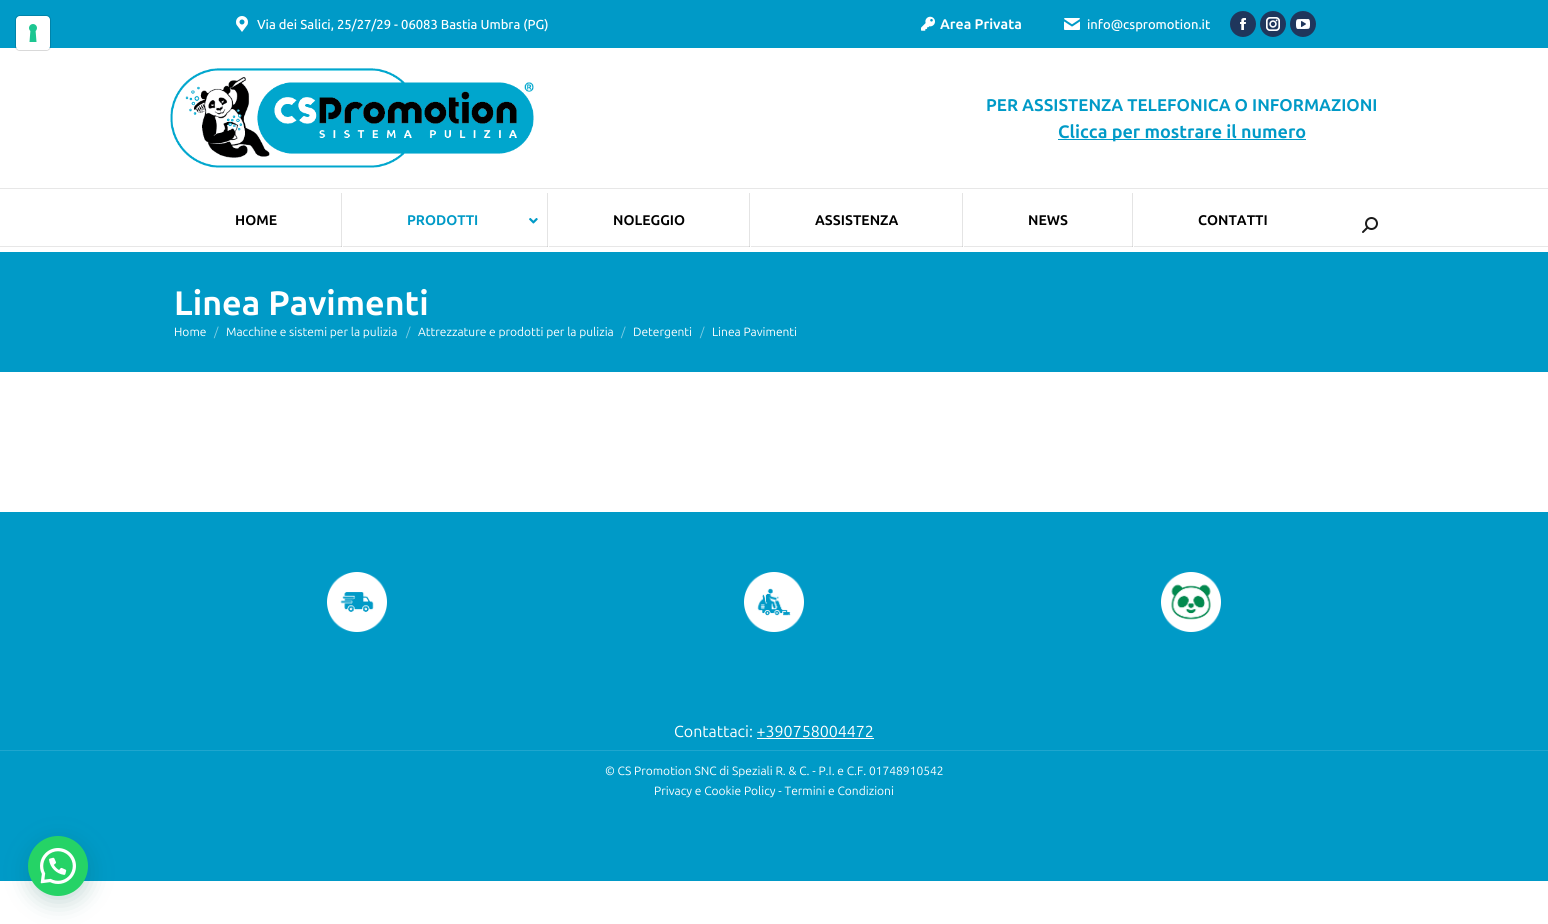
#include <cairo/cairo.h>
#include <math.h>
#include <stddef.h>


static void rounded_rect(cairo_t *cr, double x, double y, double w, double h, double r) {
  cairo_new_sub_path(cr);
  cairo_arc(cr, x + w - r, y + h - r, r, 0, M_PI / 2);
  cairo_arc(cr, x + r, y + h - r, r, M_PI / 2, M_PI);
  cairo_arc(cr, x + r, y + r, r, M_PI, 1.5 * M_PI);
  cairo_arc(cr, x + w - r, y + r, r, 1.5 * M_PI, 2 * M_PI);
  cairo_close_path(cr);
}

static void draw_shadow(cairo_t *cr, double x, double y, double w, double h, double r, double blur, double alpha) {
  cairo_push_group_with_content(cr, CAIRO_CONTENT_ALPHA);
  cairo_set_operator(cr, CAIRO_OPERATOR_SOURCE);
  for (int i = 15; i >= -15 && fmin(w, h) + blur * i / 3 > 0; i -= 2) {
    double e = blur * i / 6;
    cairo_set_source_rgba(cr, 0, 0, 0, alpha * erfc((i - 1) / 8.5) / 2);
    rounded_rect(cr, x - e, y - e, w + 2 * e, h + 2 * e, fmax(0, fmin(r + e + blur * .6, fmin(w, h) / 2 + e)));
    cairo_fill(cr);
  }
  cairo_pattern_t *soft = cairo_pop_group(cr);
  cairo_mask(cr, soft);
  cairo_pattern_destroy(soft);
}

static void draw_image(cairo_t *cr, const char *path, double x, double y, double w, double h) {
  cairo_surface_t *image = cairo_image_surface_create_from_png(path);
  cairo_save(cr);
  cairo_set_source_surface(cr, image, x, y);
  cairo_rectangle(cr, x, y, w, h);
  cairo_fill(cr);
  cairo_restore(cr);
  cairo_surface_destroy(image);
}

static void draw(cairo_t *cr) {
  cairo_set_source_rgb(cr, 1, 1, 1);
  cairo_paint(cr);
  cairo_set_source_rgb(cr, 228 / 255.0, 228 / 255.0, 228 / 255.0);
  cairo_rectangle(cr, 1132, 193, 1, 54);
  cairo_fill(cr);
  cairo_rectangle(cr, 962, 193, 1, 54);
  cairo_fill(cr);
  cairo_rectangle(cr, 749, 193, 1, 54);
  cairo_fill(cr);
  cairo_rectangle(cr, 547, 193, 1, 54);
  cairo_fill(cr);
  cairo_rectangle(cr, 341, 193, 1, 54);
  cairo_fill(cr);
  cairo_set_source_rgb(cr, 0, 154 / 255.0, 199 / 255.0);
  cairo_rectangle(cr, 0, 0, 1548, 48);
  cairo_fill(cr);
  rounded_rect(cr, 15.5, 15.5, 35, 35, 4.5);
  cairo_set_source_rgba(cr, 0, 0, 0, 0.15);
  cairo_set_line_width(cr, 1);
  cairo_stroke(cr);
  cairo_set_source_rgb(cr, 1, 1, 1);
  rounded_rect(cr, 16, 16, 34, 34, 4);
  cairo_fill(cr);
  draw_image(cr, "images/1.png", 29, 24, 8, 18);
  draw_image(cr, "images/2.png", 236, 16, 12, 16);
  draw_image(cr, "images/3.png", 921, 16, 14, 15);
  draw_image(cr, "images/4.png", 1064, 18, 16, 12);
  cairo_set_source_rgb(cr, 31 / 255.0, 54 / 255.0, 92 / 255.0);
  cairo_arc(cr, 1243, 24, 13, 0, 2 * M_PI);
  cairo_fill(cr);
  draw_image(cr, "images/5.png", 1240, 18, 6, 12);
  cairo_arc(cr, 1273, 24, 13, 0, 2 * M_PI);
  cairo_fill(cr);
  draw_image(cr, "images/6.png", 1266, 17, 14, 14);
  cairo_arc(cr, 1303, 24, 13, 0, 2 * M_PI);
  cairo_fill(cr);
  draw_image(cr, "images/7.png", 1296, 19, 14, 10);
  draw_image(cr, "images/8.png", 170, 68, 364, 100);
  cairo_set_source_rgb(cr, 0, 154 / 255.0, 199 / 255.0);
  cairo_rectangle(cr, 1058, 139, 248, 1);
  cairo_fill(cr);
  cairo_set_source_rgb(cr, 231 / 255.0, 231 / 255.0, 231 / 255.0);
  cairo_rectangle(cr, 0, 188, 1548, 1);
  cairo_fill(cr);
  cairo_rectangle(cr, 0, 246, 1548, 1);
  cairo_fill(cr);
  cairo_set_source_rgb(cr, 1, 1, 1);
  cairo_rectangle(cr, 342, 246, 1, 1);
  cairo_fill(cr);
  draw_image(cr, "images/9.png", 529, 218, 9, 6);
  cairo_rectangle(cr, 548, 246, 1, 1);
  cairo_fill(cr);
  cairo_rectangle(cr, 750, 246, 1, 1);
  cairo_fill(cr);
  cairo_rectangle(cr, 963, 246, 1, 1);
  cairo_fill(cr);
  cairo_rectangle(cr, 1133, 246, 1, 1);
  cairo_fill(cr);
  draw_image(cr, "images/10.png", 1362, 217, 16, 16);
  cairo_set_source_rgb(cr, 207 / 255.0, 207 / 255.0, 207 / 255.0);
  cairo_rectangle(cr, 1132, 246, 1, 1);
  cairo_fill(cr);
  cairo_rectangle(cr, 962, 246, 1, 1);
  cairo_fill(cr);
  cairo_rectangle(cr, 749, 246, 1, 1);
  cairo_fill(cr);
  cairo_rectangle(cr, 547, 246, 1, 1);
  cairo_fill(cr);
  cairo_rectangle(cr, 341, 246, 1, 1);
  cairo_fill(cr);
  cairo_set_source_rgb(cr, 0, 154 / 255.0, 199 / 255.0);
  cairo_rectangle(cr, 0, 252, 1548, 120);
  cairo_fill(cr);
  cairo_rectangle(cr, 0, 512, 1548, 369);
  cairo_fill(cr);
  draw_image(cr, "images/11.png", 327, 572, 60, 60);
  draw_image(cr, "images/12.png", 744, 572, 60, 60);
  draw_image(cr, "images/13.png", 1161, 572, 60, 60);
  cairo_set_source_rgb(cr, 1, 1, 1);
  cairo_rectangle(cr, 757, 738, 117, 1);
  cairo_fill(cr);
  cairo_set_source_rgb(cr, 31 / 255.0, 166 / 255.0, 206 / 255.0);
  cairo_rectangle(cr, 0, 750, 1548, 1);
  cairo_fill(cr);
  cairo_set_source_rgb(cr, 7 / 255.0, 94 / 255.0, 84 / 255.0);
  draw_shadow(cr, 29, 842, 60, 60, 30, 12, 0.24);
  cairo_set_source_rgb(cr, 37 / 255.0, 211 / 255.0, 102 / 255.0);
  cairo_arc(cr, 58, 866, 30, 0, 2 * M_PI);
  cairo_fill(cr);
  draw_image(cr, "images/14.png", 40, 848, 36, 36);
  cairo_select_font_face(cr, "Ubuntu Medium", CAIRO_FONT_SLANT_NORMAL, CAIRO_FONT_WEIGHT_NORMAL);
  cairo_set_font_size(cr, 13);
  cairo_set_source_rgb(cr, 1, 1, 1);
  cairo_move_to(cr, 257, 29);
  cairo_show_text(cr, "Via dei Salici, 25/27/29 - 06083 Bastia Umbra (PG)");
  cairo_select_font_face(cr, "Ubuntu", CAIRO_FONT_SLANT_NORMAL, CAIRO_FONT_WEIGHT_BOLD);
  cairo_set_font_size(cr, 14);
  cairo_move_to(cr, 940, 29);
  cairo_show_text(cr, "Area Privata");
  cairo_select_font_face(cr, "Ubuntu Medium", CAIRO_FONT_SLANT_NORMAL, CAIRO_FONT_WEIGHT_NORMAL);
  cairo_set_font_size(cr, 13);
  cairo_move_to(cr, 1087, 29);
  cairo_show_text(cr, "info@cspromotion.it");
  cairo_select_font_face(cr, "Ubuntu", CAIRO_FONT_SLANT_NORMAL, CAIRO_FONT_WEIGHT_BOLD);
  cairo_set_font_size(cr, 17);
  cairo_set_source_rgb(cr, 0, 154 / 255.0, 199 / 255.0);
  cairo_move_to(cr, 986, 111);
  cairo_show_text(cr, "PER ASSISTENZA TELEFONICA O INFORMAZIONI");
  cairo_set_font_size(cr, 18);
  cairo_move_to(cr, 1058, 138);
  cairo_show_text(cr, "Clicca per mostrare il numero");
  cairo_set_font_size(cr, 14);
  cairo_set_source_rgb(cr, 0, 0, 0);
  cairo_move_to(cr, 235, 225);
  cairo_show_text(cr, "HOME");
  cairo_set_source_rgb(cr, 0, 154 / 255.0, 199 / 255.0);
  cairo_move_to(cr, 407, 225);
  cairo_show_text(cr, "PRODOTTI");
  cairo_set_source_rgb(cr, 0, 0, 0);
  cairo_move_to(cr, 613, 225);
  cairo_show_text(cr, "NOLEGGIO");
  cairo_move_to(cr, 815, 225);
  cairo_show_text(cr, "ASSISTENZA");
  cairo_move_to(cr, 1028, 225);
  cairo_show_text(cr, "NEWS");
  cairo_move_to(cr, 1198, 225);
  cairo_show_text(cr, "CONTATTI");
  cairo_set_font_size(cr, 34);
  cairo_set_source_rgb(cr, 1, 1, 1);
  cairo_move_to(cr, 174, 315);
  cairo_show_text(cr, "Linea Pavimenti");
  cairo_select_font_face(cr, "Ubuntu", CAIRO_FONT_SLANT_NORMAL, CAIRO_FONT_WEIGHT_NORMAL);
  cairo_set_font_size(cr, 12);
  cairo_move_to(cr, 174, 336);
  cairo_show_text(cr, "Home");
  cairo_set_source_rgb(cr, 128 / 255.0, 205 / 255.0, 227 / 255.0);
  cairo_move_to(cr, 214, 336);
  cairo_show_text(cr, "/");
  cairo_set_source_rgb(cr, 1, 1, 1);
  cairo_move_to(cr, 226, 336);
  cairo_show_text(cr, "Macchine e sistemi per la pulizia");
  cairo_set_source_rgb(cr, 128 / 255.0, 205 / 255.0, 227 / 255.0);
  cairo_move_to(cr, 406, 336);
  cairo_show_text(cr, "/");
  cairo_set_source_rgb(cr, 1, 1, 1);
  cairo_move_to(cr, 418, 336);
  cairo_show_text(cr, "Attrezzature e prodotti per la pulizia");
  cairo_set_source_rgb(cr, 128 / 255.0, 205 / 255.0, 227 / 255.0);
  cairo_move_to(cr, 621, 336);
  cairo_show_text(cr, "/");
  cairo_set_source_rgb(cr, 1, 1, 1);
  cairo_move_to(cr, 633, 336);
  cairo_show_text(cr, "Detergenti");
  cairo_set_source_rgb(cr, 128 / 255.0, 205 / 255.0, 227 / 255.0);
  cairo_move_to(cr, 700, 336);
  cairo_show_text(cr, "/");
  cairo_set_source_rgb(cr, 1, 1, 1);
  cairo_move_to(cr, 712, 336);
  cairo_show_text(cr, "Linea Pavimenti");
  cairo_set_font_size(cr, 16);
  cairo_move_to(cr, 674, 737);
  cairo_show_text(cr, "Contattaci: +390758004472");
  cairo_set_font_size(cr, 12);
  cairo_move_to(cr, 605, 775);
  cairo_show_text(cr, "© CS Promotion SNC di Speziali R. & C. - P.I. e C.F. 01748910542");
  cairo_move_to(cr, 654, 795);
  cairo_show_text(cr, "Privacy e Cookie Policy - Termini e Condizioni");
}

int main(void) {
  cairo_surface_t *surface = cairo_image_surface_create(CAIRO_FORMAT_RGB24, 1548, 924);
  cairo_t *cr = cairo_create(surface);
  cairo_font_options_t *options = cairo_font_options_create();
  cairo_font_options_set_hint_metrics(options, CAIRO_HINT_METRICS_OFF);
  cairo_font_options_set_hint_style(options, CAIRO_HINT_STYLE_NONE);
  cairo_set_font_options(cr, options);
  cairo_set_miter_limit(cr, 4);
  draw(cr);
  cairo_surface_write_to_png(surface, "out.png");
  cairo_font_options_destroy(options);
  cairo_destroy(cr);
  cairo_surface_destroy(surface);
  return 0;
}
